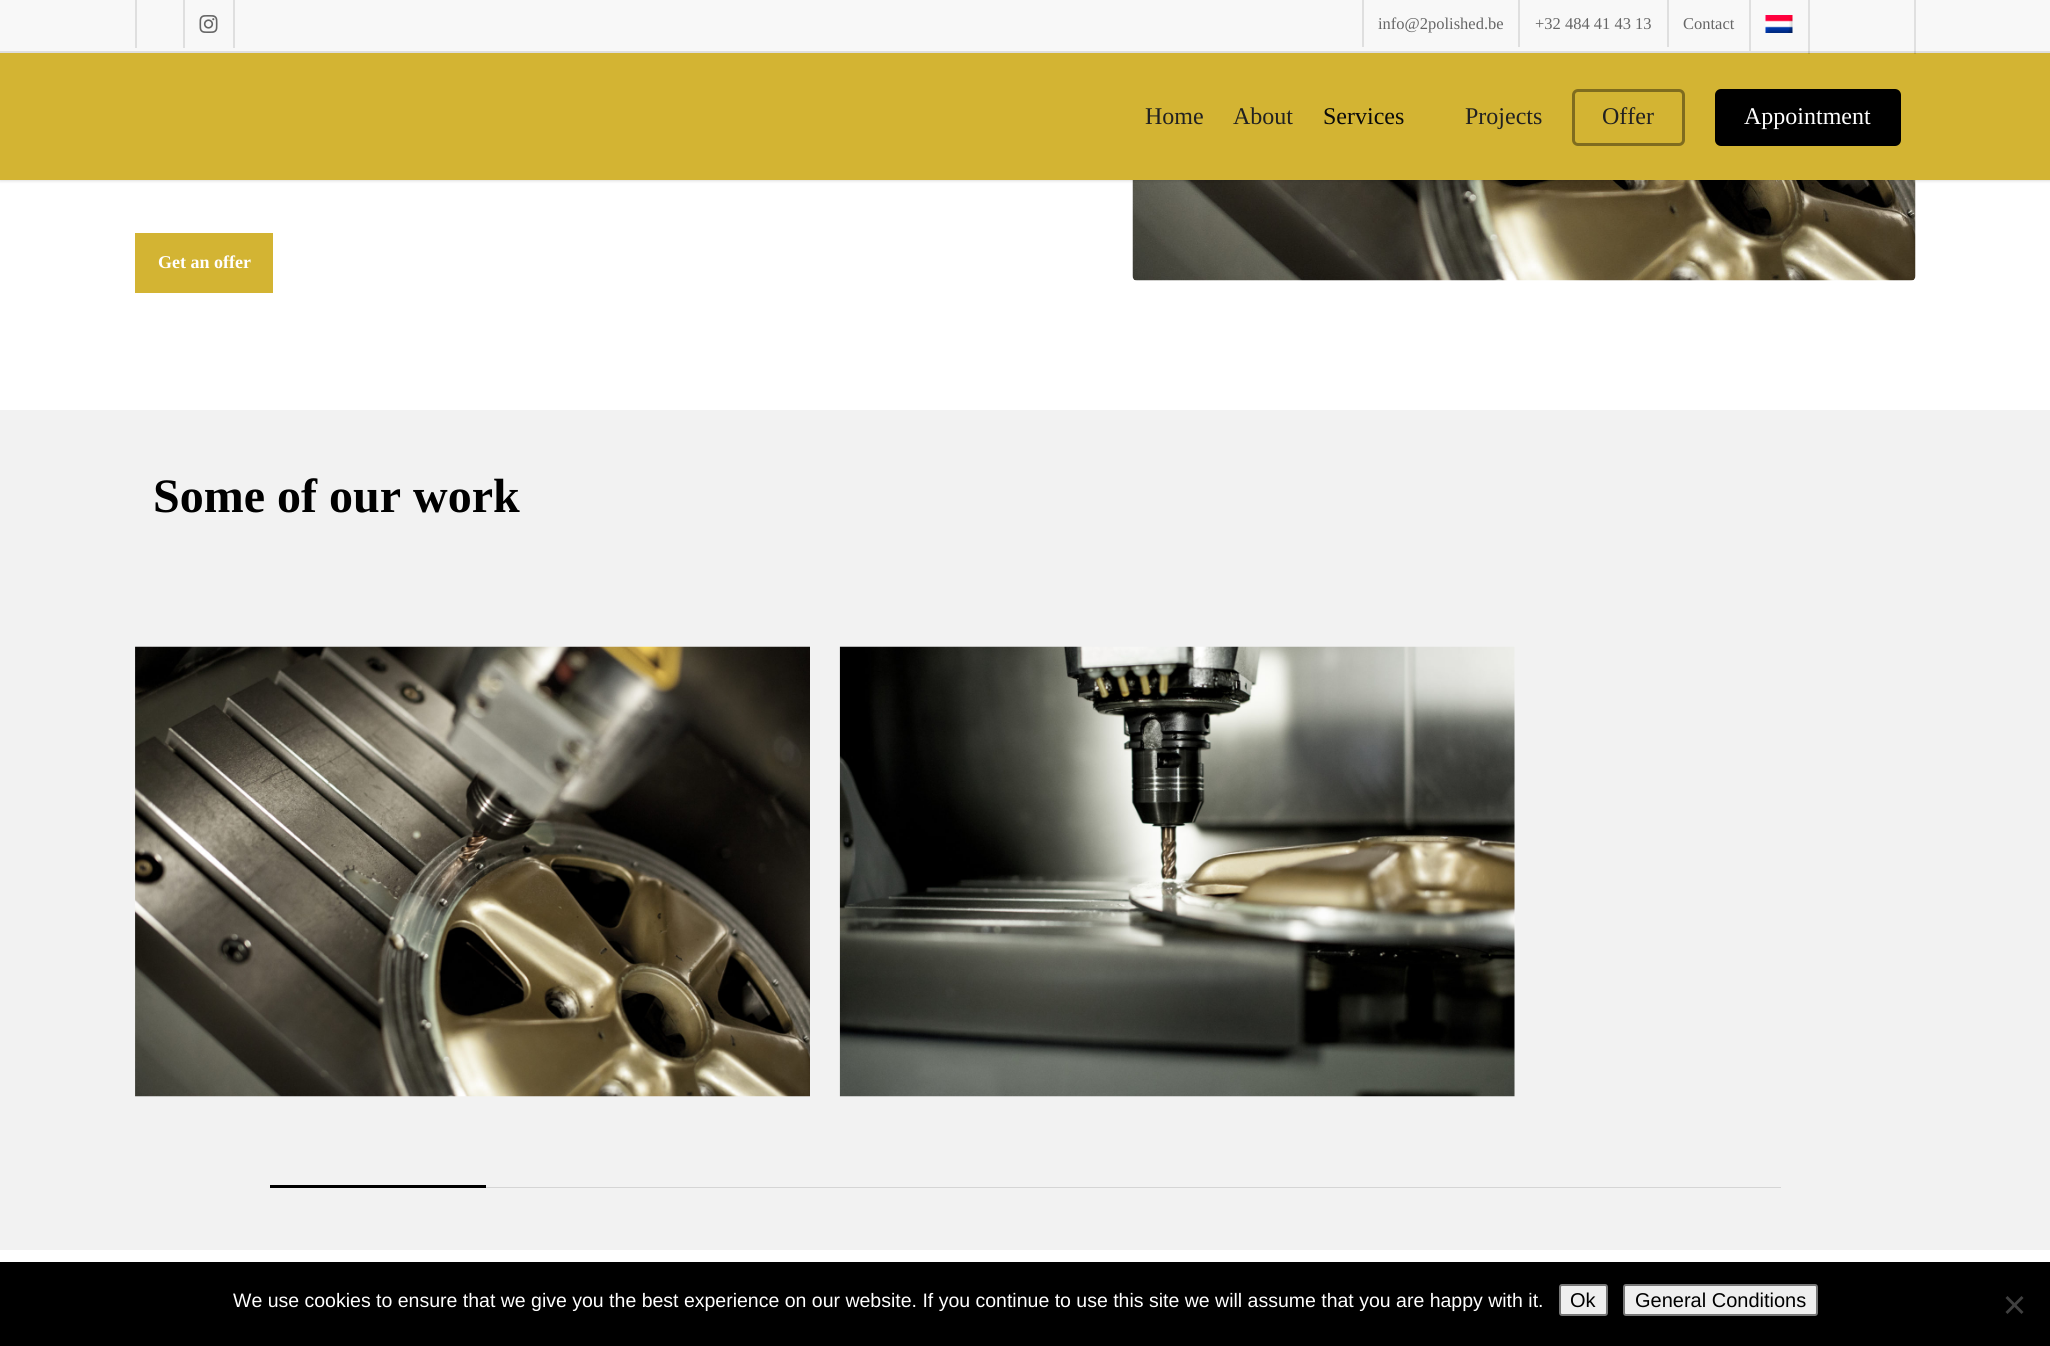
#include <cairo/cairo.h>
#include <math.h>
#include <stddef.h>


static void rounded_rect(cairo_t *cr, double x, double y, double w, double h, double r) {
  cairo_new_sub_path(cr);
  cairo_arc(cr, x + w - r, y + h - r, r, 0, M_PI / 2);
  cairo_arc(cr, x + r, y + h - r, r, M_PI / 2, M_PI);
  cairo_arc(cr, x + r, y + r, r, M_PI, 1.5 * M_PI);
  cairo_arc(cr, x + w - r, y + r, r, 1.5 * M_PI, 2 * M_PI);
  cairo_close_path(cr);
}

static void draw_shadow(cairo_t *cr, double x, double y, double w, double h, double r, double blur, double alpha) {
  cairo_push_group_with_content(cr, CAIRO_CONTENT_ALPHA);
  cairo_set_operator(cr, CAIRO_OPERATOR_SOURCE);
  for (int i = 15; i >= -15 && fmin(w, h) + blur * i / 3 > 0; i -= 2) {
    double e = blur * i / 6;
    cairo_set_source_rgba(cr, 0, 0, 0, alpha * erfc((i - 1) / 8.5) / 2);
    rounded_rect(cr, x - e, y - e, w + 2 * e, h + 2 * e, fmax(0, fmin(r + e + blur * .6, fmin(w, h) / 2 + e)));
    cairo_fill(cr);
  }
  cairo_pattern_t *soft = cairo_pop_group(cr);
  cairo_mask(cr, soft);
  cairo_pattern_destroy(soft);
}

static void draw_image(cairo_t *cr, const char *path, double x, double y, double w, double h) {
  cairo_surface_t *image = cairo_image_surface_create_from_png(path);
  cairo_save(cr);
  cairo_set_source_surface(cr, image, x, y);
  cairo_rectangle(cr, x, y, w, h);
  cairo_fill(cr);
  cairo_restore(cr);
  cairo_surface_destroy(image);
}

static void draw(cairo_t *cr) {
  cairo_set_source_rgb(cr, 1, 1, 1);
  cairo_paint(cr);
  draw_image(cr, "images/3.png", 1132, 180, 784, 101);
  cairo_set_source_rgb(cr, 0, 0, 0);
  draw_shadow(cr, 0, 0, 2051, 180, 0, 2, 0.22);
  cairo_set_source_rgb(cr, 211 / 255.0, 180 / 255.0, 51 / 255.0);
  cairo_rectangle(cr, 0, 53, 2050, 127);
  cairo_fill(cr);
  cairo_set_source_rgb(cr, 248 / 255.0, 248 / 255.0, 248 / 255.0);
  cairo_rectangle(cr, 0, 0, 2050, 51);
  cairo_fill(cr);
  cairo_set_source_rgb(cr, 223 / 255.0, 223 / 255.0, 223 / 255.0);
  cairo_rectangle(cr, 0, 51, 2050, 2);
  cairo_fill(cr);
  cairo_rectangle(cr, 135, 0, 2, 48);
  cairo_fill(cr);
  cairo_rectangle(cr, 233, 0, 2, 48);
  cairo_fill(cr);
  cairo_rectangle(cr, 183, 0, 2, 48);
  cairo_fill(cr);
  draw_image(cr, "images/1.png", 199, 15, 19, 18);
  cairo_rectangle(cr, 1362, 0, 2, 47);
  cairo_fill(cr);
  cairo_rectangle(cr, 1518, 0, 2, 47);
  cairo_fill(cr);
  cairo_rectangle(cr, 1667, 0, 2, 47);
  cairo_fill(cr);
  cairo_rectangle(cr, 1749, 0, 2, 51);
  cairo_fill(cr);
  draw_image(cr, "images/2.png", 1765, 15, 28, 18);
  cairo_set_source_rgba(cr, 0, 0, 0, 0.1);
  cairo_rectangle(cr, 1914, 0, 2, 54);
  cairo_fill(cr);
  cairo_rectangle(cr, 1808, 0, 2, 54);
  cairo_fill(cr);
  rounded_rect(cr, 1573.5, 90.5, 110, 54, 4.5);
  cairo_set_source_rgb(cr, 127 / 255.0, 108 / 255.0, 31 / 255.0);
  cairo_set_line_width(cr, 3);
  cairo_stroke(cr);
  cairo_set_source_rgb(cr, 0, 0, 0);
  rounded_rect(cr, 1715, 89, 186, 57, 6);
  cairo_fill(cr);
  cairo_set_source_rgb(cr, 211 / 255.0, 180 / 255.0, 51 / 255.0);
  cairo_rectangle(cr, 135, 233, 138, 60);
  cairo_fill(cr);
  cairo_set_source_rgb(cr, 242 / 255.0, 242 / 255.0, 242 / 255.0);
  cairo_rectangle(cr, 0, 410, 2050, 840);
  cairo_fill(cr);
  draw_image(cr, "images/4.png", 135, 646, 675, 451);
  draw_image(cr, "images/5.png", 839, 646, 676, 451);
  cairo_set_source_rgb(cr, 213 / 255.0, 213 / 255.0, 213 / 255.0);
  cairo_rectangle(cr, 486, 1187, 1295, 1);
  cairo_fill(cr);
  cairo_set_source_rgb(cr, 0, 0, 0);
  cairo_rectangle(cr, 270, 1185, 216, 3);
  cairo_fill(cr);
  cairo_rectangle(cr, 0, 1262, 2050, 84);
  cairo_fill(cr);
  cairo_set_source_rgb(cr, 239 / 255.0, 239 / 255.0, 239 / 255.0);
  rounded_rect(cr, 1560, 1285, 47, 30, 2);
  cairo_fill_preserve(cr);
  cairo_set_source_rgb(cr, 118 / 255.0, 118 / 255.0, 118 / 255.0);
  cairo_set_line_width(cr, 2);
  cairo_stroke(cr);
  cairo_set_source_rgb(cr, 239 / 255.0, 239 / 255.0, 239 / 255.0);
  rounded_rect(cr, 1624, 1285, 193, 30, 2);
  cairo_fill_preserve(cr);
  cairo_set_source_rgb(cr, 118 / 255.0, 118 / 255.0, 118 / 255.0);
  cairo_stroke(cr);
  cairo_set_source_rgb(cr, 64 / 255.0, 64 / 255.0, 64 / 255.0);
  cairo_new_path(cr);
  cairo_move_to(cr, 2021.5, 1296);
  cairo_line_to(cr, 2023.5, 1298);
  cairo_line_to(cr, 2007.5, 1314);
  cairo_line_to(cr, 2005.5, 1312);
  cairo_close_path(cr);
  cairo_fill(cr);
  cairo_new_path(cr);
  cairo_move_to(cr, 2005.5, 1298);
  cairo_line_to(cr, 2007.5, 1296);
  cairo_line_to(cr, 2023.5, 1312);
  cairo_line_to(cr, 2021.5, 1314);
  cairo_close_path(cr);
  cairo_fill(cr);
  cairo_select_font_face(cr, "Liberation Serif", CAIRO_FONT_SLANT_NORMAL, CAIRO_FONT_WEIGHT_NORMAL);
  cairo_set_font_size(cr, 16.5);
  cairo_set_source_rgb(cr, 102 / 255.0, 102 / 255.0, 102 / 255.0);
  cairo_move_to(cr, 1378, 29);
  cairo_show_text(cr, "info@2polished.be");
  cairo_move_to(cr, 1535, 29);
  cairo_show_text(cr, "+32 484 41 43 13");
  cairo_move_to(cr, 1683, 29);
  cairo_show_text(cr, "Contact");
  cairo_set_font_size(cr, 24);
  cairo_set_source_rgb(cr, 33 / 255.0, 33 / 255.0, 33 / 255.0);
  cairo_move_to(cr, 1145, 124);
  cairo_show_text(cr, "Home");
  cairo_move_to(cr, 1233, 124);
  cairo_show_text(cr, "About");
  cairo_set_source_rgb(cr, 10 / 255.0, 10 / 255.0, 10 / 255.0);
  cairo_move_to(cr, 1323, 124);
  cairo_show_text(cr, "Services");
  cairo_set_source_rgb(cr, 33 / 255.0, 33 / 255.0, 33 / 255.0);
  cairo_move_to(cr, 1465, 124);
  cairo_show_text(cr, "Projects");
  cairo_move_to(cr, 1602, 124);
  cairo_show_text(cr, "Offer");
  cairo_set_source_rgb(cr, 1, 1, 1);
  cairo_move_to(cr, 1744, 124);
  cairo_show_text(cr, "Appointment");
  cairo_select_font_face(cr, "Liberation Serif", CAIRO_FONT_SLANT_NORMAL, CAIRO_FONT_WEIGHT_BOLD);
  cairo_set_font_size(cr, 18);
  cairo_move_to(cr, 158, 268);
  cairo_show_text(cr, "Get an offer");
  cairo_set_font_size(cr, 48);
  cairo_set_source_rgb(cr, 0, 0, 0);
  cairo_move_to(cr, 153, 512);
  cairo_show_text(cr, "Some of our work");
  cairo_select_font_face(cr, "Liberation Sans", CAIRO_FONT_SLANT_NORMAL, CAIRO_FONT_WEIGHT_NORMAL);
  cairo_set_font_size(cr, 19.5);
  cairo_set_source_rgb(cr, 1, 1, 1);
  cairo_move_to(cr, 233, 1307);
  cairo_show_text(cr, "We use cookies to ensure that we give you the best experience on our website. If you continue to use this site we will assume that you are happy with it.");
  cairo_set_font_size(cr, 20);
  cairo_set_source_rgb(cr, 0, 0, 0);
  cairo_move_to(cr, 1570, 1307);
  cairo_show_text(cr, "Ok");
  cairo_move_to(cr, 1635, 1307);
  cairo_show_text(cr, "General Conditions");
}

int main(void) {
  cairo_surface_t *surface = cairo_image_surface_create(CAIRO_FORMAT_RGB24, 2050, 1346);
  cairo_t *cr = cairo_create(surface);
  cairo_font_options_t *options = cairo_font_options_create();
  cairo_font_options_set_hint_metrics(options, CAIRO_HINT_METRICS_OFF);
  cairo_font_options_set_hint_style(options, CAIRO_HINT_STYLE_NONE);
  cairo_set_font_options(cr, options);
  cairo_set_miter_limit(cr, 4);
  draw(cr);
  cairo_surface_write_to_png(surface, "out.png");
  cairo_font_options_destroy(options);
  cairo_destroy(cr);
  cairo_surface_destroy(surface);
  return 0;
}
